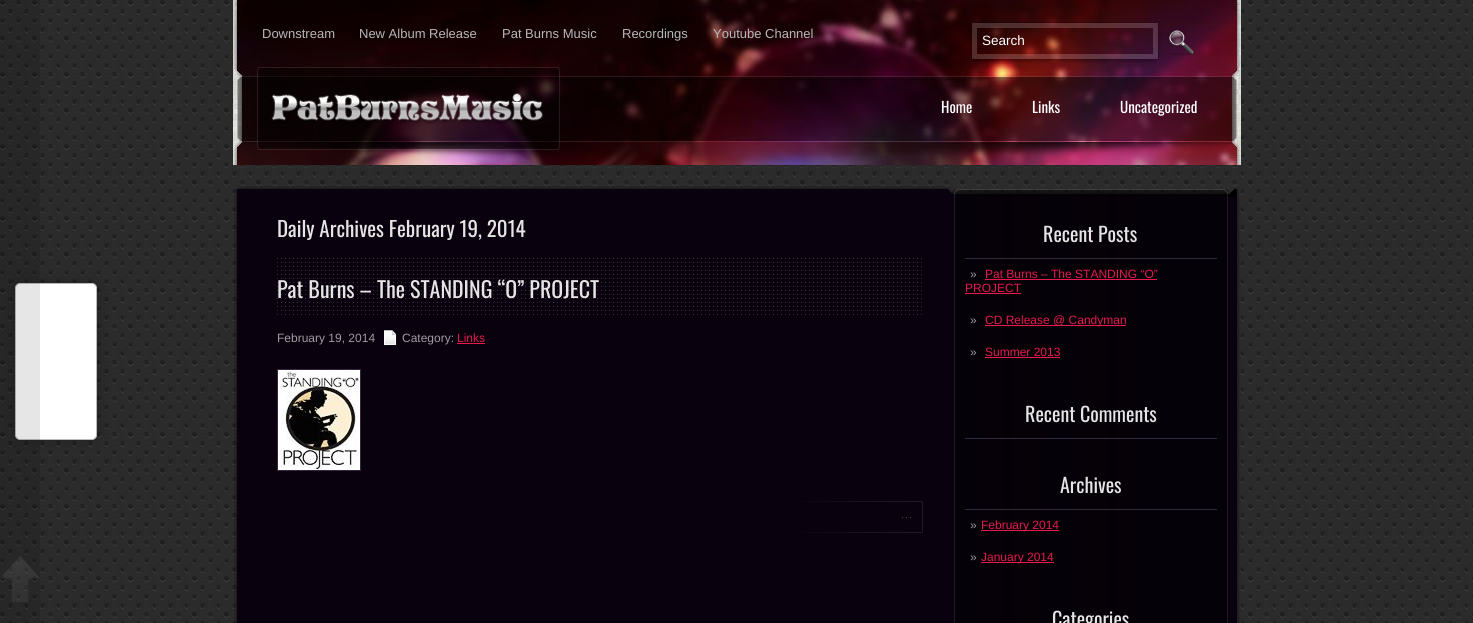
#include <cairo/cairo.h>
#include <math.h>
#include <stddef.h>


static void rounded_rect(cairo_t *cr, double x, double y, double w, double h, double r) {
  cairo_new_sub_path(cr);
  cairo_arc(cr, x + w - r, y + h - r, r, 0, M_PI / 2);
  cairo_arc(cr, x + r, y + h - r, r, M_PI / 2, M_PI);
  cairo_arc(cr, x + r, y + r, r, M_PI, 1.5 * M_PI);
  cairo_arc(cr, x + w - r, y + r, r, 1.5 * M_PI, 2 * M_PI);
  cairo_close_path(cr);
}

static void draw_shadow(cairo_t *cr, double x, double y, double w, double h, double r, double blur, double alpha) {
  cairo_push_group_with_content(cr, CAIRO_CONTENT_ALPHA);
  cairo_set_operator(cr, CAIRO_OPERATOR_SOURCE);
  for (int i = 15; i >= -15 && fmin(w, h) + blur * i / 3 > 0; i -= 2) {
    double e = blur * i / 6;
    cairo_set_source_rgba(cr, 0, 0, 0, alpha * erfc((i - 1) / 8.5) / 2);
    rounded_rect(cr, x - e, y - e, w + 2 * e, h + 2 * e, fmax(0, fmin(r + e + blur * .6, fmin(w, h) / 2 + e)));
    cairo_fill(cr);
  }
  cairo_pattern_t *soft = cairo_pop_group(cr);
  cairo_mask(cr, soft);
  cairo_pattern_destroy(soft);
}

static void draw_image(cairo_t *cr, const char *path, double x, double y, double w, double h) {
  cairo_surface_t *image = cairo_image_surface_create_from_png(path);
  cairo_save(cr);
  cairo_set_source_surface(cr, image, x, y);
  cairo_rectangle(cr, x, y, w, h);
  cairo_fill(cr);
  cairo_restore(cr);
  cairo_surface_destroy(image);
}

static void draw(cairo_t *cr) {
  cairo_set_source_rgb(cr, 1, 1, 1);
  cairo_paint(cr);
  draw_image(cr, "images/1.png", 0, 0, 1473, 623);
  cairo_set_source_rgb(cr, 0, 0, 0);
  draw_shadow(cr, 16, 283, 82, 157, 5, 7.5, 0.2);
  cairo_set_source_rgb(cr, 1, 1, 1);
  rounded_rect(cr, 15.5, 283.5, 81, 156, 4.5);
  cairo_fill_preserve(cr);
  cairo_set_source_rgb(cr, 187 / 255.0, 187 / 255.0, 187 / 255.0);
  cairo_set_line_width(cr, 1);
  cairo_stroke(cr);
  cairo_set_source_rgba(cr, 0, 0, 0, 0.1);
  cairo_rectangle(cr, 0, 0, 40, 623);
  cairo_fill(cr);
  draw_image(cr, "images/2.png", 0, 556, 40, 46);
  draw_image(cr, "images/3.png", 233, 0, 1008, 165);
  draw_image(cr, "images/4.png", 1169, 30, 25, 25);
  draw_image(cr, "images/6.png", 237, 76, 1000, 85);
  draw_image(cr, "images/5.png", 257, 67, 303, 83);
  draw_image(cr, "images/7.png", 234, 186, 1005, 12);
  draw_image(cr, "images/8.png", 234, 198, 1006, 425);
  draw_image(cr, "images/9.png", 277, 258, 645, 57);
  draw_image(cr, "images/10.png", 384, 330, 13, 16);
  cairo_set_source_rgb(cr, 229 / 255.0, 26 / 255.0, 79 / 255.0);
  cairo_rectangle(cr, 457, 343, 28, 1);
  cairo_fill(cr);
  cairo_set_source_rgb(cr, 54 / 255.0, 39 / 255.0, 61 / 255.0);
  cairo_rectangle(cr, 277, 369, 84, 102);
  cairo_fill(cr);
  draw_image(cr, "images/11.png", 278, 370, 82, 100);
  draw_image(cr, "images/12.png", 803, 501, 120, 32);
  cairo_set_source_rgb(cr, 52 / 255.0, 41 / 255.0, 58 / 255.0);
  cairo_rectangle(cr, 965, 258, 252, 1);
  cairo_fill(cr);
  cairo_set_source_rgb(cr, 229 / 255.0, 26 / 255.0, 79 / 255.0);
  cairo_rectangle(cr, 985, 279, 172, 1);
  cairo_fill(cr);
  cairo_rectangle(cr, 965, 293, 56, 1);
  cairo_fill(cr);
  cairo_rectangle(cr, 985, 325, 141, 1);
  cairo_fill(cr);
  cairo_rectangle(cr, 985, 357, 75, 1);
  cairo_fill(cr);
  cairo_set_source_rgb(cr, 52 / 255.0, 41 / 255.0, 58 / 255.0);
  cairo_rectangle(cr, 965, 438, 252, 1);
  cairo_fill(cr);
  cairo_rectangle(cr, 965, 509, 252, 1);
  cairo_fill(cr);
  cairo_set_source_rgb(cr, 229 / 255.0, 26 / 255.0, 79 / 255.0);
  cairo_rectangle(cr, 981, 530, 78, 1);
  cairo_fill(cr);
  cairo_rectangle(cr, 981, 562, 73, 1);
  cairo_fill(cr);
  cairo_select_font_face(cr, "Liberation Sans", CAIRO_FONT_SLANT_NORMAL, CAIRO_FONT_WEIGHT_NORMAL);
  cairo_set_font_size(cr, 13);
  cairo_set_source_rgb(cr, 181 / 255.0, 184 / 255.0, 187 / 255.0);
  cairo_move_to(cr, 262, 38);
  cairo_show_text(cr, "Downstream");
  cairo_move_to(cr, 359, 38);
  cairo_show_text(cr, "New Album Release");
  cairo_move_to(cr, 502, 38);
  cairo_show_text(cr, "Pat Burns Music");
  cairo_move_to(cr, 622, 38);
  cairo_show_text(cr, "Recordings");
  cairo_move_to(cr, 713, 38);
  cairo_show_text(cr, "Youtube Channel");
  cairo_set_font_size(cr, 13.5);
  cairo_set_source_rgb(cr, 1, 1, 1);
  cairo_move_to(cr, 982, 45);
  cairo_show_text(cr, "Search");
  cairo_select_font_face(cr, "Oswald", CAIRO_FONT_SLANT_NORMAL, CAIRO_FONT_WEIGHT_NORMAL);
  cairo_set_font_size(cr, 15);
  cairo_move_to(cr, 941, 113);
  cairo_show_text(cr, "Home");
  cairo_move_to(cr, 1032, 113);
  cairo_show_text(cr, "Links");
  cairo_move_to(cr, 1120, 113);
  cairo_show_text(cr, "Uncategorized");
  cairo_set_font_size(cr, 21);
  cairo_set_source_rgb(cr, 229 / 255.0, 229 / 255.0, 229 / 255.0);
  cairo_move_to(cr, 277, 237);
  cairo_show_text(cr, "Daily Archives February 19, 2014");
  cairo_set_font_size(cr, 22);
  cairo_move_to(cr, 277, 298);
  cairo_show_text(cr, "Pat Burns – The STANDING “O” PROJECT");
  cairo_select_font_face(cr, "Liberation Sans", CAIRO_FONT_SLANT_NORMAL, CAIRO_FONT_WEIGHT_NORMAL);
  cairo_set_font_size(cr, 12);
  cairo_set_source_rgb(cr, 159 / 255.0, 156 / 255.0, 160 / 255.0);
  cairo_move_to(cr, 277, 342);
  cairo_show_text(cr, "February 19, 2014");
  cairo_move_to(cr, 402, 342);
  cairo_show_text(cr, "Category:");
  cairo_set_source_rgb(cr, 229 / 255.0, 26 / 255.0, 79 / 255.0);
  cairo_move_to(cr, 457, 342);
  cairo_show_text(cr, "Links");
  cairo_select_font_face(cr, "Oswald", CAIRO_FONT_SLANT_NORMAL, CAIRO_FONT_WEIGHT_NORMAL);
  cairo_set_font_size(cr, 20);
  cairo_set_source_rgb(cr, 229 / 255.0, 229 / 255.0, 229 / 255.0);
  cairo_move_to(cr, 1043, 242);
  cairo_show_text(cr, "Recent Posts");
  cairo_select_font_face(cr, "Liberation Sans", CAIRO_FONT_SLANT_NORMAL, CAIRO_FONT_WEIGHT_NORMAL);
  cairo_set_font_size(cr, 12);
  cairo_set_source_rgb(cr, 159 / 255.0, 156 / 255.0, 160 / 255.0);
  cairo_move_to(cr, 970, 278);
  cairo_show_text(cr, "»");
  cairo_set_source_rgb(cr, 229 / 255.0, 26 / 255.0, 79 / 255.0);
  cairo_move_to(cr, 985, 278);
  cairo_show_text(cr, "Pat Burns – The STANDING “O”");
  cairo_move_to(cr, 965, 292);
  cairo_show_text(cr, "PROJECT");
  cairo_set_source_rgb(cr, 159 / 255.0, 156 / 255.0, 160 / 255.0);
  cairo_move_to(cr, 970, 324);
  cairo_show_text(cr, "»");
  cairo_set_source_rgb(cr, 229 / 255.0, 26 / 255.0, 79 / 255.0);
  cairo_move_to(cr, 985, 324);
  cairo_show_text(cr, "CD Release @ Candyman");
  cairo_set_source_rgb(cr, 159 / 255.0, 156 / 255.0, 160 / 255.0);
  cairo_move_to(cr, 970, 356);
  cairo_show_text(cr, "»");
  cairo_set_source_rgb(cr, 229 / 255.0, 26 / 255.0, 79 / 255.0);
  cairo_move_to(cr, 985, 356);
  cairo_show_text(cr, "Summer 2013");
  cairo_select_font_face(cr, "Oswald", CAIRO_FONT_SLANT_NORMAL, CAIRO_FONT_WEIGHT_NORMAL);
  cairo_set_font_size(cr, 20);
  cairo_set_source_rgb(cr, 229 / 255.0, 229 / 255.0, 229 / 255.0);
  cairo_move_to(cr, 1025, 422);
  cairo_show_text(cr, "Recent Comments");
  cairo_move_to(cr, 1060, 493);
  cairo_show_text(cr, "Archives");
  cairo_select_font_face(cr, "Liberation Sans", CAIRO_FONT_SLANT_NORMAL, CAIRO_FONT_WEIGHT_NORMAL);
  cairo_set_font_size(cr, 12);
  cairo_set_source_rgb(cr, 159 / 255.0, 156 / 255.0, 160 / 255.0);
  cairo_move_to(cr, 970, 529);
  cairo_show_text(cr, "»");
  cairo_set_source_rgb(cr, 229 / 255.0, 26 / 255.0, 79 / 255.0);
  cairo_move_to(cr, 981, 529);
  cairo_show_text(cr, "February 2014");
  cairo_set_source_rgb(cr, 159 / 255.0, 156 / 255.0, 160 / 255.0);
  cairo_move_to(cr, 970, 561);
  cairo_show_text(cr, "»");
  cairo_set_source_rgb(cr, 229 / 255.0, 26 / 255.0, 79 / 255.0);
  cairo_move_to(cr, 981, 561);
  cairo_show_text(cr, "January 2014");
  cairo_select_font_face(cr, "Oswald", CAIRO_FONT_SLANT_NORMAL, CAIRO_FONT_WEIGHT_NORMAL);
  cairo_set_font_size(cr, 20);
  cairo_set_source_rgb(cr, 229 / 255.0, 229 / 255.0, 229 / 255.0);
  cairo_move_to(cr, 1052, 627);
  cairo_show_text(cr, "Categories");
}

int main(void) {
  cairo_surface_t *surface = cairo_image_surface_create(CAIRO_FORMAT_RGB24, 1473, 623);
  cairo_t *cr = cairo_create(surface);
  cairo_font_options_t *options = cairo_font_options_create();
  cairo_font_options_set_hint_metrics(options, CAIRO_HINT_METRICS_OFF);
  cairo_font_options_set_hint_style(options, CAIRO_HINT_STYLE_NONE);
  cairo_set_font_options(cr, options);
  cairo_set_miter_limit(cr, 4);
  draw(cr);
  cairo_surface_write_to_png(surface, "out.png");
  cairo_font_options_destroy(options);
  cairo_destroy(cr);
  cairo_surface_destroy(surface);
  return 0;
}
